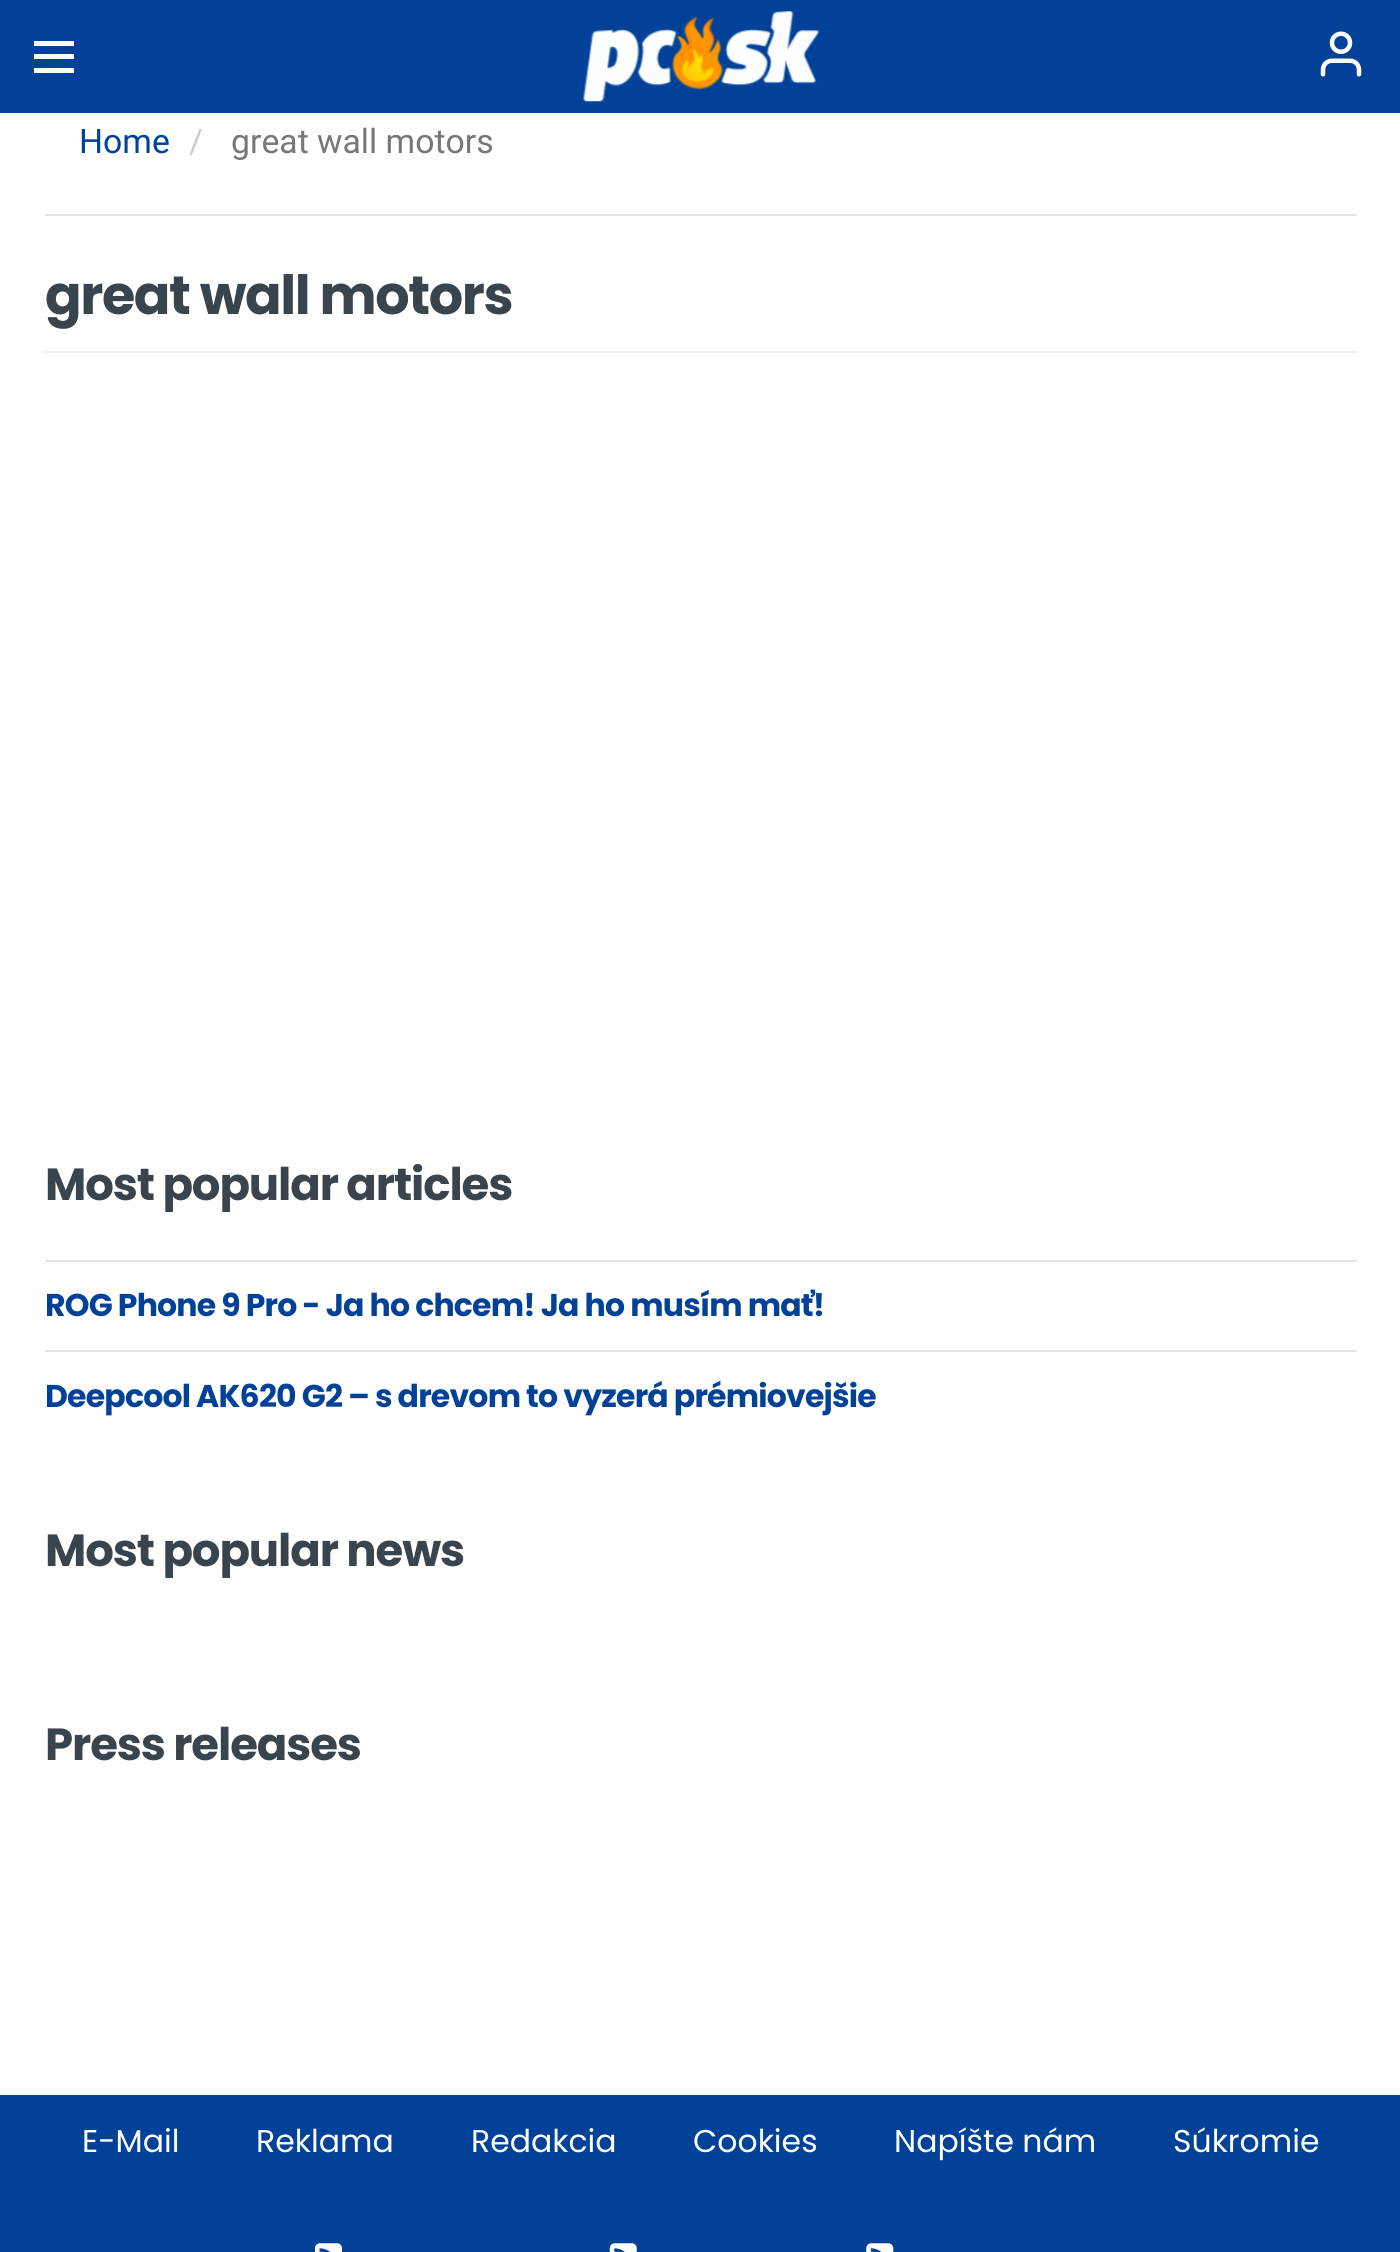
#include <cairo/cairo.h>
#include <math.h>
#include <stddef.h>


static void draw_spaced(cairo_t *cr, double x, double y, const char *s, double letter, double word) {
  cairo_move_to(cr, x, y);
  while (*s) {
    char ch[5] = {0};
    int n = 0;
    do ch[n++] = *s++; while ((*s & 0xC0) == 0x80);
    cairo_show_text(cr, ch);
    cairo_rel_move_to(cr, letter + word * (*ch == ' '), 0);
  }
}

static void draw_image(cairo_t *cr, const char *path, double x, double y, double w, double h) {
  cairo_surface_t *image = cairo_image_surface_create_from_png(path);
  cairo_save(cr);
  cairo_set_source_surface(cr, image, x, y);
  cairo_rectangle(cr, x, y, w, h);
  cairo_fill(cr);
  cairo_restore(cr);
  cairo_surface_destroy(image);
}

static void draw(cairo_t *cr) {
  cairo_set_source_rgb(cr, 1, 1, 1);
  cairo_paint(cr);
  cairo_set_source_rgb(cr, 1 / 255.0, 66 / 255.0, 152 / 255.0);
  cairo_rectangle(cr, 0, 0, 1400, 113);
  cairo_fill(cr);
  cairo_set_source_rgb(cr, 1, 1, 1);
  cairo_rectangle(cr, 34, 54, 40, 5);
  cairo_fill(cr);
  cairo_rectangle(cr, 34, 41, 40, 5);
  cairo_fill(cr);
  cairo_rectangle(cr, 34, 68, 40, 5);
  cairo_fill(cr);
  draw_image(cr, "images/1.png", 583, 11, 237, 91);
  draw_image(cr, "images/2.png", 1320, 31, 42, 46);
  cairo_set_source_rgb(cr, 225 / 255.0, 229 / 255.0, 230 / 255.0);
  cairo_rectangle(cr, 45, 214, 1312, 2);
  cairo_fill(cr);
  cairo_set_source_rgb(cr, 238 / 255.0, 238 / 255.0, 238 / 255.0);
  cairo_rectangle(cr, 45, 351, 1312, 2);
  cairo_fill(cr);
  cairo_set_source_rgb(cr, 225 / 255.0, 229 / 255.0, 230 / 255.0);
  cairo_rectangle(cr, 45, 1260, 1312, 2);
  cairo_fill(cr);
  cairo_rectangle(cr, 45, 1350, 1312, 2);
  cairo_fill(cr);
  cairo_set_source_rgb(cr, 1 / 255.0, 66 / 255.0, 152 / 255.0);
  cairo_rectangle(cr, 0, 2095, 1400, 157);
  cairo_fill(cr);
  draw_image(cr, "images/3.png", 315, 2243, 27, 9);
  draw_image(cr, "images/4.png", 609, 2243, 28, 9);
  draw_image(cr, "images/5.png", 866, 2243, 28, 9);
  cairo_select_font_face(cr, "Roboto", CAIRO_FONT_SLANT_NORMAL, CAIRO_FONT_WEIGHT_NORMAL);
  cairo_set_font_size(cr, 33.75);
  cairo_move_to(cr, 79, 153);
  cairo_show_text(cr, "Home");
  cairo_set_source_rgb(cr, 204 / 255.0, 204 / 255.0, 204 / 255.0);
  cairo_move_to(cr, 189, 153);
  cairo_show_text(cr, "/");
  cairo_set_source_rgb(cr, 119 / 255.0, 119 / 255.0, 119 / 255.0);
  cairo_move_to(cr, 231, 153);
  cairo_show_text(cr, "great wall motors");
  cairo_select_font_face(cr, "Poppins", CAIRO_FONT_SLANT_NORMAL, CAIRO_FONT_WEIGHT_BOLD);
  cairo_set_font_size(cr, 54);
  cairo_set_source_rgb(cr, 58 / 255.0, 68 / 255.0, 77 / 255.0);
  draw_spaced(cr, 45, 314, "great wall motors", -1.4, 0);
  cairo_set_font_size(cr, 45);
  draw_spaced(cr, 45, 1200, "Most popular articles", -1.1, 0);
  cairo_set_font_size(cr, 31.5);
  cairo_set_source_rgb(cr, 1 / 255.0, 66 / 255.0, 152 / 255.0);
  draw_spaced(cr, 45, 1316, "ROG Phone 9 Pro - Ja ho chcem! Ja ho musím mať!", -0.8, 0);
  draw_spaced(cr, 45, 1407, "Deepcool AK620 G2 – s drevom to vyzerá prémiovejšie", -0.8, 0);
  cairo_set_font_size(cr, 45);
  cairo_set_source_rgb(cr, 58 / 255.0, 68 / 255.0, 77 / 255.0);
  draw_spaced(cr, 45, 1566, "Most popular news", -1.1, 0);
  draw_spaced(cr, 45, 1760, "Press releases", -1.1, 0);
  cairo_select_font_face(cr, "Poppins", CAIRO_FONT_SLANT_NORMAL, CAIRO_FONT_WEIGHT_NORMAL);
  cairo_set_font_size(cr, 31.5);
  cairo_set_source_rgb(cr, 1, 1, 1);
  cairo_move_to(cr, 82, 2152);
  cairo_show_text(cr, "E-Mail");
  cairo_move_to(cr, 256, 2152);
  cairo_show_text(cr, "Reklama");
  cairo_move_to(cr, 471, 2152);
  cairo_show_text(cr, "Redakcia");
  cairo_move_to(cr, 693, 2152);
  cairo_show_text(cr, "Cookies");
  cairo_move_to(cr, 894, 2152);
  cairo_show_text(cr, "Napíšte nám");
  cairo_move_to(cr, 1173, 2152);
  cairo_show_text(cr, "Súkromie");
}

int main(void) {
  cairo_surface_t *surface = cairo_image_surface_create(CAIRO_FORMAT_RGB24, 1400, 2252);
  cairo_t *cr = cairo_create(surface);
  cairo_font_options_t *options = cairo_font_options_create();
  cairo_font_options_set_hint_metrics(options, CAIRO_HINT_METRICS_OFF);
  cairo_font_options_set_hint_style(options, CAIRO_HINT_STYLE_NONE);
  cairo_set_font_options(cr, options);
  cairo_set_miter_limit(cr, 4);
  draw(cr);
  cairo_surface_write_to_png(surface, "out.png");
  cairo_font_options_destroy(options);
  cairo_destroy(cr);
  cairo_surface_destroy(surface);
  return 0;
}
